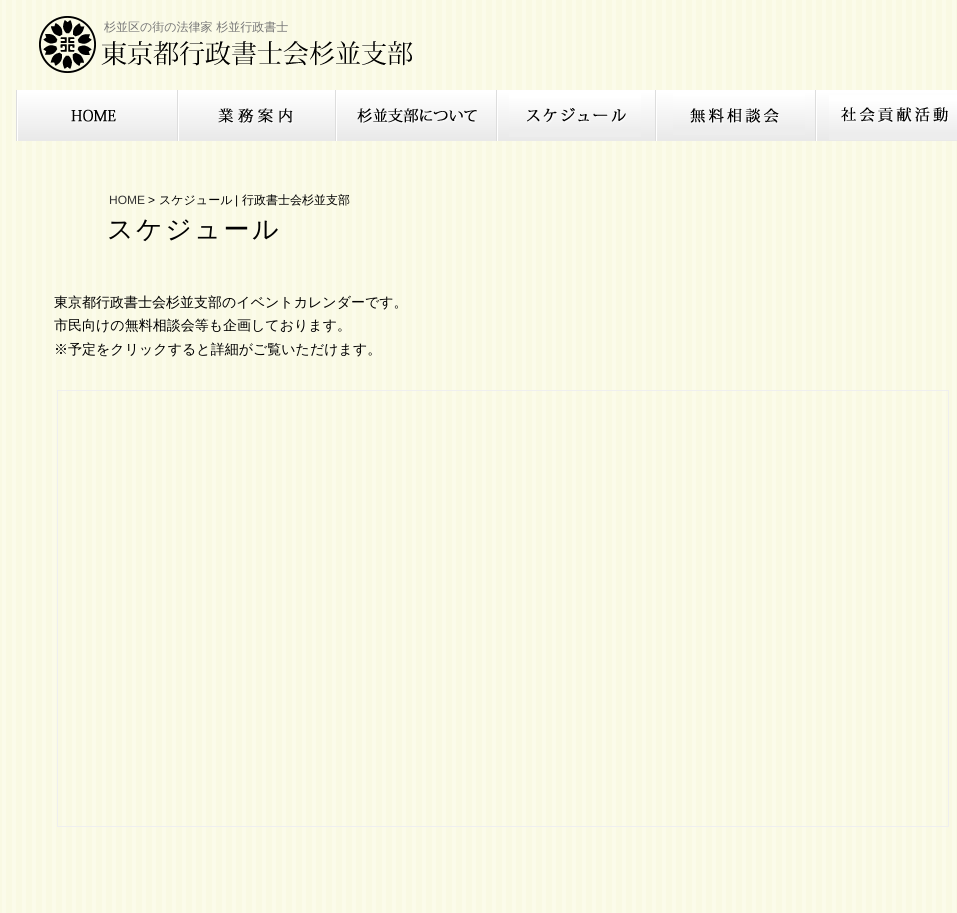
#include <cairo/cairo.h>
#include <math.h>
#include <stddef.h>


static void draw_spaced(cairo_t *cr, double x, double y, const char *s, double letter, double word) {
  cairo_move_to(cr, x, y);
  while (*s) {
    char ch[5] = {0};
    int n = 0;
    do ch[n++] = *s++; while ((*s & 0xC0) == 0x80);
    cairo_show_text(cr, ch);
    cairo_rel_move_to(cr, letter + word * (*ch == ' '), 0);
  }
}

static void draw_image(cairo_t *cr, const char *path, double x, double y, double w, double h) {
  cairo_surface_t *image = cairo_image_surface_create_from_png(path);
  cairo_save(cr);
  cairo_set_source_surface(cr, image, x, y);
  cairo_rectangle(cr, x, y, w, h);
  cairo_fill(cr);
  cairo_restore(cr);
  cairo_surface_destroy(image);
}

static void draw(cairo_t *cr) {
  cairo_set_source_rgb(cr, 1, 1, 1);
  cairo_paint(cr);
  draw_image(cr, "images/1.png", 0, 0, 957, 913);
  draw_image(cr, "images/3.png", 16, 90, 163, 51);
  draw_image(cr, "images/4.png", 179, 90, 158, 51);
  draw_image(cr, "images/5.png", 337, 90, 161, 51);
  draw_image(cr, "images/6.png", 498, 90, 159, 51);
  draw_image(cr, "images/7.png", 657, 90, 160, 51);
  draw_image(cr, "images/8.png", 817, 90, 140, 51);
  cairo_rectangle(cr, 57.5, 390.5, 891, 436);
  cairo_set_source_rgb(cr, 239 / 255.0, 239 / 255.0, 239 / 255.0);
  cairo_set_line_width(cr, 1);
  cairo_stroke(cr);
  cairo_select_font_face(cr, "WenQuanYi Zen Hei Medium", CAIRO_FONT_SLANT_NORMAL, CAIRO_FONT_WEIGHT_NORMAL);
  cairo_set_font_size(cr, 12);
  cairo_set_source_rgb(cr, 119 / 255.0, 119 / 255.0, 119 / 255.0);
  cairo_move_to(cr, 104, 31);
  cairo_show_text(cr, "杉並区の街の法律家 杉並行政書士");
  draw_image(cr, "images/2.png", 39, 16, 374, 57);
  cairo_select_font_face(cr, "Liberation Sans", CAIRO_FONT_SLANT_NORMAL, CAIRO_FONT_WEIGHT_NORMAL);
  cairo_set_source_rgb(cr, 51 / 255.0, 51 / 255.0, 51 / 255.0);
  cairo_move_to(cr, 109, 204);
  cairo_show_text(cr, "HOME");
  cairo_set_source_rgb(cr, 0, 0, 0);
  cairo_move_to(cr, 148, 204);
  cairo_show_text(cr, ">");
  cairo_select_font_face(cr, "WenQuanYi Zen Hei Medium", CAIRO_FONT_SLANT_NORMAL, CAIRO_FONT_WEIGHT_NORMAL);
  cairo_move_to(cr, 159, 204);
  cairo_show_text(cr, "スケジュール");
  cairo_select_font_face(cr, "Liberation Sans", CAIRO_FONT_SLANT_NORMAL, CAIRO_FONT_WEIGHT_NORMAL);
  cairo_move_to(cr, 235, 204);
  cairo_show_text(cr, "|");
  cairo_select_font_face(cr, "WenQuanYi Zen Hei Medium", CAIRO_FONT_SLANT_NORMAL, CAIRO_FONT_WEIGHT_NORMAL);
  cairo_move_to(cr, 242, 204);
  cairo_show_text(cr, "行政書士会杉並支部");
  cairo_set_font_size(cr, 26);
  draw_spaced(cr, 107, 238, "スケジュール", 2.5, 0);
  cairo_set_font_size(cr, 14);
  cairo_move_to(cr, 54, 307);
  cairo_show_text(cr, "東京都行政書士会杉並支部のイベントカレンダーです。");
  cairo_move_to(cr, 54, 330);
  cairo_show_text(cr, "市民向けの無料相談会等も企画しております。");
  cairo_move_to(cr, 54, 354);
  cairo_show_text(cr, "※予定をクリックすると詳細がご覧いただけます。");
}

int main(void) {
  cairo_surface_t *surface = cairo_image_surface_create(CAIRO_FORMAT_RGB24, 957, 913);
  cairo_t *cr = cairo_create(surface);
  cairo_font_options_t *options = cairo_font_options_create();
  cairo_font_options_set_hint_metrics(options, CAIRO_HINT_METRICS_OFF);
  cairo_font_options_set_hint_style(options, CAIRO_HINT_STYLE_NONE);
  cairo_set_font_options(cr, options);
  cairo_set_miter_limit(cr, 4);
  draw(cr);
  cairo_surface_write_to_png(surface, "out.png");
  cairo_font_options_destroy(options);
  cairo_destroy(cr);
  cairo_surface_destroy(surface);
  return 0;
}
